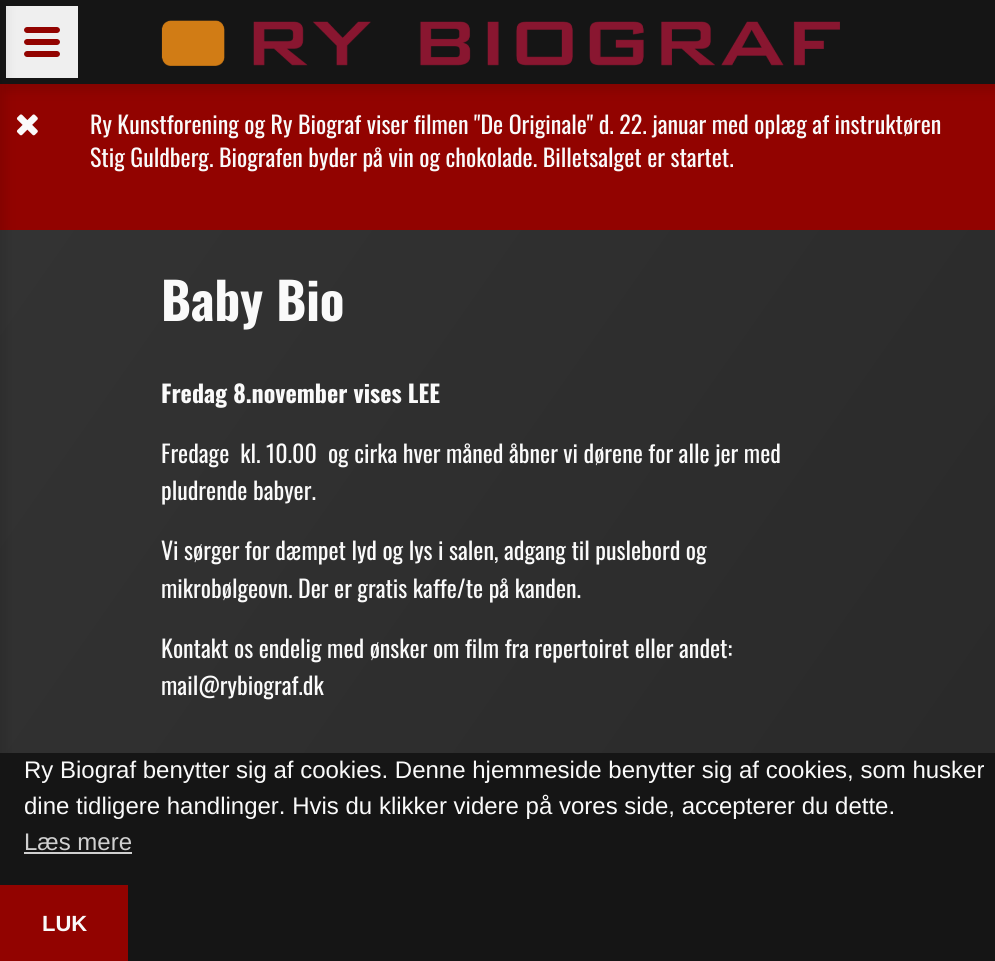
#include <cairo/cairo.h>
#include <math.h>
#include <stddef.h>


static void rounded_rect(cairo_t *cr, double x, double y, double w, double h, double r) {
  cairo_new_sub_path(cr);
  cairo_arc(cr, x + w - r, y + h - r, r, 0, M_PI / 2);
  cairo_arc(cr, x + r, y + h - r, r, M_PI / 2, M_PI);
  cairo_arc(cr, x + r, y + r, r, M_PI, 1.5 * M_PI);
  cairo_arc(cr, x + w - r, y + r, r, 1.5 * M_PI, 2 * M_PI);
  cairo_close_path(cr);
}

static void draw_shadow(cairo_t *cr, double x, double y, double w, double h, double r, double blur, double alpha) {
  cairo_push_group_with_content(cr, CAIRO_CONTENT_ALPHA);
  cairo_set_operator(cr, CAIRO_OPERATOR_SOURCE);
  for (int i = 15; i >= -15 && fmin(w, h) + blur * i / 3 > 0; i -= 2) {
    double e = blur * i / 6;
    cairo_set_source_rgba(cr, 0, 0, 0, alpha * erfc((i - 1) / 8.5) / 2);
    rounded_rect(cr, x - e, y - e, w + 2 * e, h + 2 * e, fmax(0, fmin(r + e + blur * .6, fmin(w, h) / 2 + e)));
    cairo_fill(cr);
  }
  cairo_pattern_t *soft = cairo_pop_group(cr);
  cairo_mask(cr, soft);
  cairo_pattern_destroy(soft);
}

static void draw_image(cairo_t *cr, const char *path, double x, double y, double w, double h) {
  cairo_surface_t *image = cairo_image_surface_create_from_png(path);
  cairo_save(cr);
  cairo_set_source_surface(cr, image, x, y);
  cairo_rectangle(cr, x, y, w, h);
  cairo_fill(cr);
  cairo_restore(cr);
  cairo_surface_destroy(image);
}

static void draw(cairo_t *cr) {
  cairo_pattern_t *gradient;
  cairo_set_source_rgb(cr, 146 / 255.0, 3 / 255.0, 0);
  cairo_paint(cr);
  cairo_set_source_rgb(cr, 0, 0, 0);
  draw_shadow(cr, 5, 6, 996, 84, 0, 6, 0.11);
  cairo_set_source_rgb(cr, 21 / 255.0, 21 / 255.0, 21 / 255.0);
  cairo_rectangle(cr, 0, 0, 995, 84);
  cairo_fill(cr);
  cairo_set_source_rgb(cr, 239 / 255.0, 239 / 255.0, 239 / 255.0);
  cairo_rectangle(cr, 6, 6, 72, 72);
  cairo_fill(cr);
  cairo_set_source_rgb(cr, 146 / 255.0, 3 / 255.0, 0);
  cairo_new_path(cr);
  cairo_move_to(cr, 57, 45);
  cairo_line_to(cr, 27, 45);
  cairo_curve_to(cr, 25.5, 45, 24, 43.5, 24, 42);
  cairo_curve_to(cr, 24, 40.5, 25.5, 39, 27, 39);
  cairo_line_to(cr, 57, 39);
  cairo_curve_to(cr, 58.5, 39, 60, 40.5, 60, 42);
  cairo_curve_to(cr, 60, 43.5, 58.5, 45, 57, 45);
  cairo_close_path(cr);
  cairo_move_to(cr, 57, 57);
  cairo_line_to(cr, 27, 57);
  cairo_curve_to(cr, 25.5, 57, 24, 55.5, 24, 54);
  cairo_curve_to(cr, 24, 52.5, 25.5, 51, 27, 51);
  cairo_line_to(cr, 57, 51);
  cairo_curve_to(cr, 58.5, 51, 60, 52.5, 60, 54);
  cairo_curve_to(cr, 60, 55.5, 58.5, 57, 57, 57);
  cairo_close_path(cr);
  cairo_move_to(cr, 57, 33);
  cairo_line_to(cr, 27, 33);
  cairo_curve_to(cr, 25.5, 33, 24, 31.5, 24, 30);
  cairo_curve_to(cr, 24, 28.5, 25.5, 27, 27, 27);
  cairo_line_to(cr, 57, 27);
  cairo_curve_to(cr, 58.5, 27, 60, 28.5, 60, 30);
  cairo_curve_to(cr, 60, 31.5, 58.5, 33, 57, 33);
  cairo_close_path(cr);
  cairo_fill(cr);
  draw_image(cr, "images/1.png", 161, 20, 679, 46);
  draw_image(cr, "images/2.png", 16, 114, 22, 22);
  gradient = cairo_pattern_create_linear(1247, 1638, -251, 588);
  cairo_pattern_add_color_stop_rgba(gradient, 0, 36 / 255.0, 36 / 255.0, 36 / 255.0, 1);
  cairo_pattern_add_color_stop_rgba(gradient, 1, 51 / 255.0, 51 / 255.0, 51 / 255.0, 1);
  cairo_set_source(cr, gradient);
  cairo_pattern_destroy(gradient);
  cairo_rectangle(cr, 0, 230, 995, 523);
  cairo_fill(cr);
  cairo_set_source_rgb(cr, 0, 0, 0);
  draw_shadow(cr, -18, 6, 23, 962, 0, 6, 0.11);
  cairo_set_source_rgb(cr, 21 / 255.0, 21 / 255.0, 21 / 255.0);
  cairo_rectangle(cr, 0, 753, 995, 208);
  cairo_fill(cr);
  cairo_set_source_rgb(cr, 208 / 255.0, 208 / 255.0, 208 / 255.0);
  cairo_rectangle(cr, 24, 852, 108, 2);
  cairo_fill(cr);
  cairo_set_source_rgb(cr, 146 / 255.0, 3 / 255.0, 0);
  cairo_rectangle(cr, 0, 885, 128, 76);
  cairo_fill(cr);
  cairo_select_font_face(cr, "Oswald", CAIRO_FONT_SLANT_NORMAL, CAIRO_FONT_WEIGHT_NORMAL);
  cairo_set_font_size(cr, 24);
  cairo_set_source_rgb(cr, 250 / 255.0, 250 / 255.0, 250 / 255.0);
  cairo_move_to(cr, 90, 134);
  cairo_show_text(cr, "Ry Kunstforening og Ry Biograf viser filmen \"De Originale\" d. 22. januar med oplæg af instruktøren");
  cairo_move_to(cr, 90, 167);
  cairo_show_text(cr, "Stig Guldberg. Biografen byder på vin og chokolade. Billetsalget er startet.");
  cairo_select_font_face(cr, "Oswald", CAIRO_FONT_SLANT_NORMAL, CAIRO_FONT_WEIGHT_BOLD);
  cairo_set_font_size(cr, 51);
  cairo_move_to(cr, 161, 321);
  cairo_show_text(cr, "Baby Bio");
  cairo_set_font_size(cr, 24);
  cairo_move_to(cr, 161, 403);
  cairo_show_text(cr, "Fredag 8.november vises LEE");
  cairo_select_font_face(cr, "Oswald", CAIRO_FONT_SLANT_NORMAL, CAIRO_FONT_WEIGHT_NORMAL);
  cairo_move_to(cr, 161, 463);
  cairo_show_text(cr, "Fredage  kl. 10.00  og cirka hver måned åbner vi dørene for alle jer med");
  cairo_move_to(cr, 161, 500);
  cairo_show_text(cr, "pludrende babyer.");
  cairo_move_to(cr, 161, 560);
  cairo_show_text(cr, "Vi sørger for dæmpet lyd og lys i salen, adgang til puslebord og");
  cairo_move_to(cr, 161, 598);
  cairo_show_text(cr, "mikrobølgeovn. Der er gratis kaffe/te på kanden.");
  cairo_move_to(cr, 161, 658);
  cairo_show_text(cr, "Kontakt os endelig med ønsker om film fra repertoiret eller andet:");
  cairo_move_to(cr, 161, 695);
  cairo_show_text(cr, "mail@rybiograf.dk");
  cairo_select_font_face(cr, "Liberation Sans", CAIRO_FONT_SLANT_NORMAL, CAIRO_FONT_WEIGHT_NORMAL);
  cairo_move_to(cr, 24, 778);
  cairo_show_text(cr, "Ry Biograf benytter sig af cookies. Denne hjemmeside benytter sig af cookies, som husker");
  cairo_move_to(cr, 24, 814);
  cairo_show_text(cr, "dine tidligere handlinger. Hvis du klikker videre på vores side, accepterer du dette.");
  cairo_set_source_rgb(cr, 208 / 255.0, 208 / 255.0, 208 / 255.0);
  cairo_move_to(cr, 24, 850);
  cairo_show_text(cr, "Læs mere");
  cairo_select_font_face(cr, "Liberation Sans", CAIRO_FONT_SLANT_NORMAL, CAIRO_FONT_WEIGHT_BOLD);
  cairo_set_font_size(cr, 22);
  cairo_set_source_rgb(cr, 250 / 255.0, 250 / 255.0, 250 / 255.0);
  cairo_move_to(cr, 42, 931);
  cairo_show_text(cr, "LUK");
}

int main(void) {
  cairo_surface_t *surface = cairo_image_surface_create(CAIRO_FORMAT_RGB24, 995, 961);
  cairo_t *cr = cairo_create(surface);
  cairo_font_options_t *options = cairo_font_options_create();
  cairo_font_options_set_hint_metrics(options, CAIRO_HINT_METRICS_OFF);
  cairo_font_options_set_hint_style(options, CAIRO_HINT_STYLE_NONE);
  cairo_set_font_options(cr, options);
  cairo_set_miter_limit(cr, 4);
  draw(cr);
  cairo_surface_write_to_png(surface, "out.png");
  cairo_font_options_destroy(options);
  cairo_destroy(cr);
  cairo_surface_destroy(surface);
  return 0;
}
